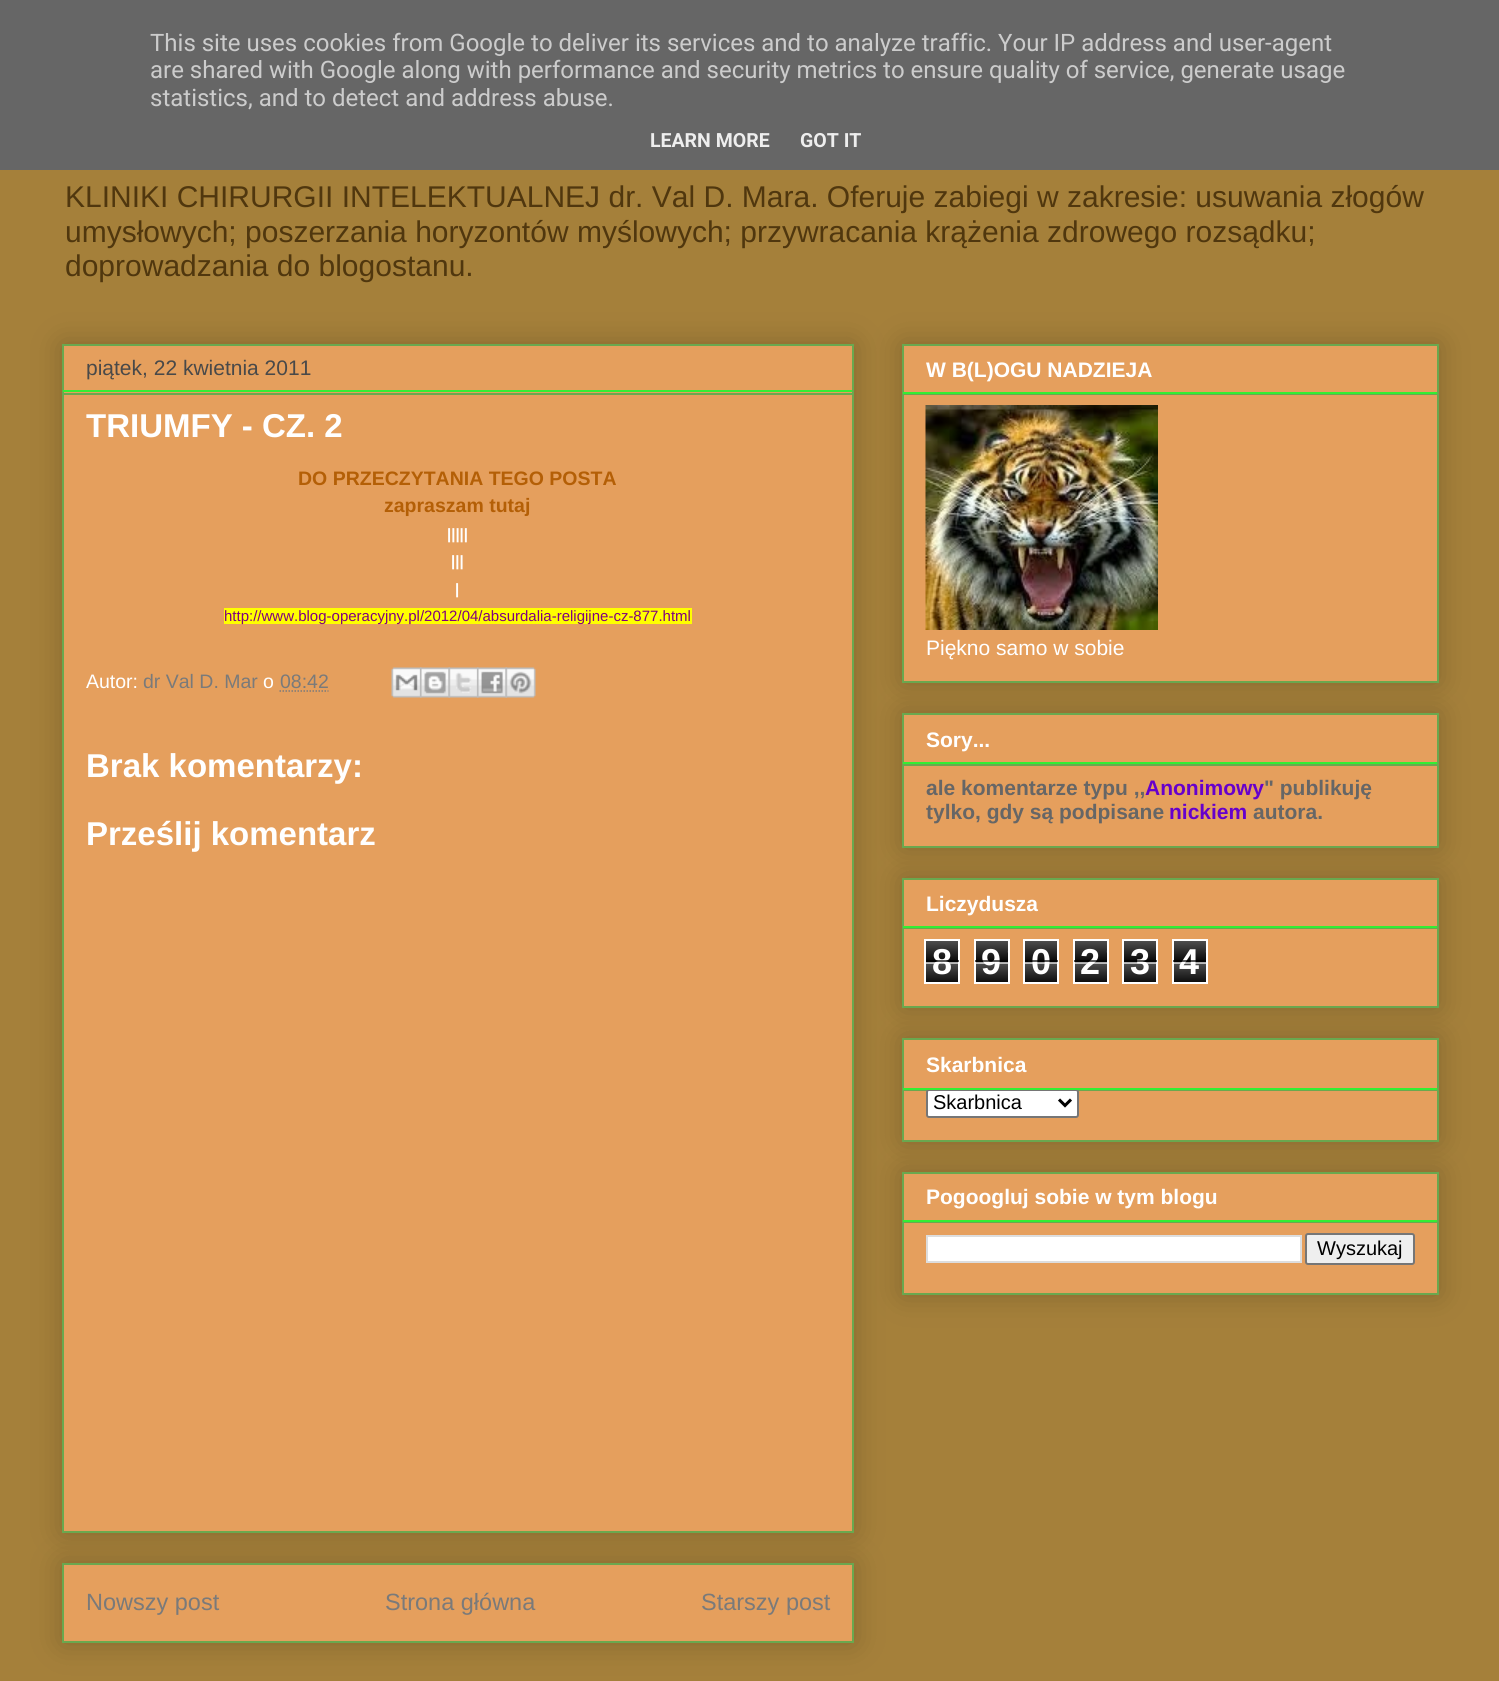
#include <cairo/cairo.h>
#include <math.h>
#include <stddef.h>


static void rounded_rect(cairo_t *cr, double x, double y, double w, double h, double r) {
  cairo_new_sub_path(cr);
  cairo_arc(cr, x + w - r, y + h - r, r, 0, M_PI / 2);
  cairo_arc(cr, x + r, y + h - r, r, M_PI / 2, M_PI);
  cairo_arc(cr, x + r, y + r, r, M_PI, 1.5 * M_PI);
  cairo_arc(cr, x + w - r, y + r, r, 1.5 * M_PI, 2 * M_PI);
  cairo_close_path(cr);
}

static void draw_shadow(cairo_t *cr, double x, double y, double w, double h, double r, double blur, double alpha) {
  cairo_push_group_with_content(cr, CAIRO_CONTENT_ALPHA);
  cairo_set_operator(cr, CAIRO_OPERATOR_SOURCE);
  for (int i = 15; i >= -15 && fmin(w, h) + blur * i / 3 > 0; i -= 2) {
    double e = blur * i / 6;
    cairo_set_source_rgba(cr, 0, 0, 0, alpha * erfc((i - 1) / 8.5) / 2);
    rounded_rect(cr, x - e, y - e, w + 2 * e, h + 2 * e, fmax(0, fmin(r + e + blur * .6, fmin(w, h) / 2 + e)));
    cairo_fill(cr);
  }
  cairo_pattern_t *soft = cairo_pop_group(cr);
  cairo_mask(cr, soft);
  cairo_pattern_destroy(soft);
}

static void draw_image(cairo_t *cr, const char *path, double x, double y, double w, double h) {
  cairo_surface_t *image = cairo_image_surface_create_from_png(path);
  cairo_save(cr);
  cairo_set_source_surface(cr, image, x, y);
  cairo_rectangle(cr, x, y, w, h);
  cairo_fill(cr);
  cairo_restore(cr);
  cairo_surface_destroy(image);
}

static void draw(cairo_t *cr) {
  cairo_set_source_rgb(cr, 165 / 255.0, 128 / 255.0, 58 / 255.0);
  cairo_paint(cr);
  cairo_set_source_rgb(cr, 102 / 255.0, 102 / 255.0, 102 / 255.0);
  cairo_rectangle(cr, 0, 0, 1499, 170);
  cairo_fill(cr);
  cairo_set_source_rgb(cr, 0, 0, 0);
  draw_shadow(cr, 62, 1563, 792, 80, 0, 15, 0.2);
  cairo_set_source_rgb(cr, 229 / 255.0, 159 / 255.0, 93 / 255.0);
  cairo_rectangle(cr, 63, 1564, 790, 78);
  cairo_fill_preserve(cr);
  cairo_set_source_rgb(cr, 106 / 255.0, 168 / 255.0, 79 / 255.0);
  cairo_stroke(cr);
  cairo_set_source_rgb(cr, 0, 0, 0);
  draw_shadow(cr, 62, 344, 792, 1189, 0, 15, 0.2);
  cairo_set_source_rgb(cr, 229 / 255.0, 159 / 255.0, 93 / 255.0);
  cairo_rectangle(cr, 63, 345, 790, 1187);
  cairo_fill_preserve(cr);
  cairo_set_source_rgb(cr, 106 / 255.0, 168 / 255.0, 79 / 255.0);
  cairo_stroke(cr);
  cairo_set_source_rgb(cr, 51 / 255.0, 238 / 255.0, 51 / 255.0);
  cairo_rectangle(cr, 63, 390, 789, 2);
  cairo_fill(cr);
  cairo_set_source_rgb(cr, 106 / 255.0, 168 / 255.0, 79 / 255.0);
  cairo_rectangle(cr, 63, 393, 789, 2);
  cairo_fill(cr);
  cairo_set_source_rgb(cr, 1, 1, 0);
  cairo_rectangle(cr, 224, 608, 468, 16);
  cairo_fill(cr);
  cairo_new_path(cr);
  cairo_move_to(cr, 279.5, 691);
  cairo_line_to(cr, 328.5, 691);
  cairo_set_source_rgb(cr, 122 / 255.0, 122 / 255.0, 122 / 255.0);
  cairo_set_line_width(cr, 1.5);
  cairo_set_dash(cr, (double[]){1.5, 1.5}, 2, 0);
  cairo_stroke(cr);
  draw_image(cr, "images/1.png", 391, 667, 31, 31);
  draw_image(cr, "images/2.png", 420, 667, 30, 31);
  draw_image(cr, "images/3.png", 448, 667, 31, 31);
  draw_image(cr, "images/4.png", 477, 667, 30, 31);
  draw_image(cr, "images/5.png", 505, 667, 31, 31);
  cairo_set_source_rgb(cr, 0, 0, 0);
  draw_shadow(cr, 902, 344, 537, 339, 0, 15, 0.2);
  cairo_set_source_rgb(cr, 229 / 255.0, 159 / 255.0, 93 / 255.0);
  cairo_rectangle(cr, 903, 345, 535, 337);
  cairo_fill_preserve(cr);
  cairo_set_source_rgb(cr, 106 / 255.0, 168 / 255.0, 79 / 255.0);
  cairo_set_line_width(cr, 2);
  cairo_set_dash(cr, NULL, 0, 0);
  cairo_stroke(cr);
  cairo_set_source_rgb(cr, 51 / 255.0, 238 / 255.0, 51 / 255.0);
  cairo_rectangle(cr, 903, 392, 534, 2);
  cairo_fill(cr);
  cairo_set_source_rgb(cr, 106 / 255.0, 168 / 255.0, 79 / 255.0);
  cairo_rectangle(cr, 903, 394, 534, 1);
  cairo_fill(cr);
  draw_image(cr, "images/6.png", 925, 405, 233, 225);
  cairo_set_source_rgb(cr, 0, 0, 0);
  draw_shadow(cr, 902, 713, 537, 135, 0, 15, 0.2);
  cairo_set_source_rgb(cr, 229 / 255.0, 159 / 255.0, 93 / 255.0);
  cairo_rectangle(cr, 903, 714, 535, 133);
  cairo_fill_preserve(cr);
  cairo_set_source_rgb(cr, 106 / 255.0, 168 / 255.0, 79 / 255.0);
  cairo_stroke(cr);
  cairo_set_source_rgb(cr, 51 / 255.0, 238 / 255.0, 51 / 255.0);
  cairo_rectangle(cr, 903, 762, 534, 2);
  cairo_fill(cr);
  cairo_set_source_rgb(cr, 106 / 255.0, 168 / 255.0, 79 / 255.0);
  cairo_rectangle(cr, 903, 764, 534, 2);
  cairo_fill(cr);
  cairo_set_source_rgb(cr, 0, 0, 0);
  draw_shadow(cr, 902, 878, 537, 130, 0, 15, 0.2);
  cairo_set_source_rgb(cr, 229 / 255.0, 159 / 255.0, 93 / 255.0);
  cairo_rectangle(cr, 903, 879, 535, 128);
  cairo_fill_preserve(cr);
  cairo_set_source_rgb(cr, 106 / 255.0, 168 / 255.0, 79 / 255.0);
  cairo_stroke(cr);
  cairo_set_source_rgb(cr, 51 / 255.0, 238 / 255.0, 51 / 255.0);
  cairo_rectangle(cr, 903, 926, 534, 2);
  cairo_fill(cr);
  cairo_set_source_rgb(cr, 106 / 255.0, 168 / 255.0, 79 / 255.0);
  cairo_rectangle(cr, 903, 928, 534, 1);
  cairo_fill(cr);
  draw_image(cr, "images/7.png", 926, 941, 32, 41);
  cairo_rectangle(cr, 925, 940, 34, 43);
  cairo_set_source_rgb(cr, 1, 1, 1);
  cairo_stroke(cr);
  draw_image(cr, "images/8.png", 976, 941, 32, 41);
  cairo_rectangle(cr, 975, 940, 34, 43);
  cairo_stroke(cr);
  draw_image(cr, "images/7.png", 1025, 941, 32, 41);
  cairo_rectangle(cr, 1024, 940, 34, 43);
  cairo_stroke(cr);
  draw_image(cr, "images/8.png", 1075, 941, 32, 41);
  cairo_rectangle(cr, 1074, 940, 34, 43);
  cairo_stroke(cr);
  draw_image(cr, "images/7.png", 1124, 941, 32, 41);
  cairo_rectangle(cr, 1123, 940, 34, 43);
  cairo_stroke(cr);
  draw_image(cr, "images/8.png", 1174, 941, 32, 41);
  cairo_rectangle(cr, 1173, 940, 34, 43);
  cairo_stroke(cr);
  cairo_set_source_rgb(cr, 0, 0, 0);
  draw_shadow(cr, 902, 1038, 537, 104, 0, 15, 0.2);
  cairo_set_source_rgb(cr, 229 / 255.0, 159 / 255.0, 93 / 255.0);
  cairo_rectangle(cr, 903, 1039, 535, 102);
  cairo_fill_preserve(cr);
  cairo_set_source_rgb(cr, 106 / 255.0, 168 / 255.0, 79 / 255.0);
  cairo_stroke(cr);
  cairo_rectangle(cr, 903, 1090, 534, 1);
  cairo_fill(cr);
  cairo_set_source_rgb(cr, 1, 1, 1);
  rounded_rect(cr, 927, 1090, 151, 27, 2);
  cairo_fill_preserve(cr);
  cairo_set_source_rgb(cr, 118 / 255.0, 118 / 255.0, 118 / 255.0);
  cairo_stroke(cr);
  cairo_set_source_rgb(cr, 51 / 255.0, 238 / 255.0, 51 / 255.0);
  cairo_rectangle(cr, 903, 1088, 534, 2);
  cairo_fill(cr);
  cairo_new_path(cr);
  cairo_move_to(cr, 1059, 1099.5);
  cairo_line_to(cr, 1065, 1105.5);
  cairo_line_to(cr, 1071, 1099.5);
  cairo_set_source_rgb(cr, 0, 0, 0);
  cairo_set_line_width(cr, 3);
  cairo_stroke(cr);
  cairo_set_source_rgb(cr, 0, 0, 0);
  draw_shadow(cr, 902, 1172, 537, 123, 0, 15, 0.2);
  cairo_set_source_rgb(cr, 229 / 255.0, 159 / 255.0, 93 / 255.0);
  cairo_rectangle(cr, 903, 1173, 535, 121);
  cairo_fill_preserve(cr);
  cairo_set_source_rgb(cr, 106 / 255.0, 168 / 255.0, 79 / 255.0);
  cairo_set_line_width(cr, 2);
  cairo_stroke(cr);
  cairo_set_source_rgb(cr, 51 / 255.0, 238 / 255.0, 51 / 255.0);
  cairo_rectangle(cr, 903, 1220, 534, 2);
  cairo_fill(cr);
  cairo_set_source_rgb(cr, 106 / 255.0, 168 / 255.0, 79 / 255.0);
  cairo_rectangle(cr, 903, 1222, 534, 1);
  cairo_fill(cr);
  cairo_set_source_rgb(cr, 1, 1, 1);
  cairo_rectangle(cr, 927, 1236, 374, 26);
  cairo_fill_preserve(cr);
  cairo_set_source_rgb(cr, 221 / 255.0, 221 / 255.0, 221 / 255.0);
  cairo_stroke(cr);
  cairo_set_source_rgb(cr, 239 / 255.0, 239 / 255.0, 239 / 255.0);
  rounded_rect(cr, 1306, 1234, 108, 30, 2);
  cairo_fill_preserve(cr);
  cairo_set_source_rgb(cr, 118 / 255.0, 118 / 255.0, 118 / 255.0);
  cairo_stroke(cr);
  cairo_select_font_face(cr, "Roboto", CAIRO_FONT_SLANT_NORMAL, CAIRO_FONT_WEIGHT_NORMAL);
  cairo_set_font_size(cr, 24);
  cairo_set_source_rgb(cr, 204 / 255.0, 204 / 255.0, 204 / 255.0);
  cairo_move_to(cr, 150, 51);
  cairo_show_text(cr, "This site uses cookies from Google to deliver its services and to analyze traffic. Your IP address and user-agent");
  cairo_move_to(cr, 150, 78);
  cairo_show_text(cr, "are shared with Google along with performance and security metrics to ensure quality of service, generate usage");
  cairo_move_to(cr, 150, 106);
  cairo_show_text(cr, "statistics, and to detect and address abuse.");
  cairo_select_font_face(cr, "Roboto", CAIRO_FONT_SLANT_NORMAL, CAIRO_FONT_WEIGHT_BOLD);
  cairo_set_font_size(cr, 19.5);
  cairo_set_source_rgb(cr, 238 / 255.0, 238 / 255.0, 238 / 255.0);
  cairo_move_to(cr, 650, 147);
  cairo_show_text(cr, "LEARN MORE");
  cairo_move_to(cr, 800, 147);
  cairo_show_text(cr, "GOT IT");
  cairo_select_font_face(cr, "Liberation Sans", CAIRO_FONT_SLANT_NORMAL, CAIRO_FONT_WEIGHT_NORMAL);
  cairo_set_font_size(cr, 30);
  cairo_set_source_rgb(cr, 80 / 255.0, 55 / 255.0, 14 / 255.0);
  cairo_move_to(cr, 65, 207);
  cairo_show_text(cr, "KLINIKI CHIRURGII INTELEKTUALNEJ dr. Val D. Mara. Oferuje zabiegi w zakresie: usuwania złogów");
  cairo_move_to(cr, 65, 242);
  cairo_show_text(cr, "umysłowych; poszerzania horyzontów myślowych; przywracania krążenia zdrowego rozsądku;");
  cairo_move_to(cr, 65, 276);
  cairo_show_text(cr, "doprowadzania do blogostanu.");
  cairo_set_font_size(cr, 21);
  cairo_set_source_rgb(cr, 73 / 255.0, 73 / 255.0, 73 / 255.0);
  cairo_move_to(cr, 86, 375);
  cairo_show_text(cr, "piątek, 22 kwietnia 2011");
  cairo_select_font_face(cr, "Liberation Sans", CAIRO_FONT_SLANT_NORMAL, CAIRO_FONT_WEIGHT_BOLD);
  cairo_set_font_size(cr, 33);
  cairo_set_source_rgb(cr, 1, 1, 1);
  cairo_move_to(cr, 86, 437);
  cairo_show_text(cr, "TRIUMFY - CZ. 2");
  cairo_set_font_size(cr, 19.5);
  cairo_set_source_rgb(cr, 180 / 255.0, 95 / 255.0, 6 / 255.0);
  cairo_move_to(cr, 298, 485);
  cairo_show_text(cr, "DO PRZECZYTANIA TEGO POSTA");
  cairo_move_to(cr, 384, 512);
  cairo_show_text(cr, "zapraszam tutaj");
  cairo_set_font_size(cr, 15);
  cairo_set_source_rgb(cr, 1, 1, 1);
  cairo_move_to(cr, 447, 539);
  cairo_show_text(cr, "|||||");
  cairo_move_to(cr, 451, 566);
  cairo_show_text(cr, "|||");
  cairo_move_to(cr, 455, 594);
  cairo_show_text(cr, "|");
  cairo_select_font_face(cr, "Liberation Sans", CAIRO_FONT_SLANT_NORMAL, CAIRO_FONT_WEIGHT_NORMAL);
  cairo_set_source_rgb(cr, 128 / 255.0, 0, 128 / 255.0);
  cairo_move_to(cr, 224, 621);
  cairo_show_text(cr, "http://www.blog-operacyjny.pl/2012/04/absurdalia-religijne-cz-877.html");
  cairo_set_font_size(cr, 19.5);
  cairo_set_source_rgb(cr, 1, 1, 1);
  cairo_move_to(cr, 86, 688);
  cairo_show_text(cr, "Autor:");
  cairo_set_source_rgb(cr, 122 / 255.0, 122 / 255.0, 122 / 255.0);
  cairo_move_to(cr, 143, 688);
  cairo_show_text(cr, "dr Val D. Mar");
  cairo_set_source_rgb(cr, 1, 1, 1);
  cairo_move_to(cr, 263, 688);
  cairo_show_text(cr, "o");
  cairo_set_source_rgb(cr, 122 / 255.0, 122 / 255.0, 122 / 255.0);
  cairo_move_to(cr, 280, 688);
  cairo_show_text(cr, "08:42");
  cairo_select_font_face(cr, "Liberation Sans", CAIRO_FONT_SLANT_NORMAL, CAIRO_FONT_WEIGHT_BOLD);
  cairo_set_font_size(cr, 33);
  cairo_set_source_rgb(cr, 1, 1, 1);
  cairo_move_to(cr, 86, 777);
  cairo_show_text(cr, "Brak komentarzy:");
  cairo_move_to(cr, 86, 845);
  cairo_show_text(cr, "Prześlij komentarz");
  cairo_select_font_face(cr, "Liberation Sans", CAIRO_FONT_SLANT_NORMAL, CAIRO_FONT_WEIGHT_NORMAL);
  cairo_set_font_size(cr, 23.5);
  cairo_set_source_rgb(cr, 122 / 255.0, 122 / 255.0, 122 / 255.0);
  cairo_move_to(cr, 86, 1610);
  cairo_show_text(cr, "Nowszy post");
  cairo_move_to(cr, 385, 1610);
  cairo_show_text(cr, "Strona główna");
  cairo_move_to(cr, 701, 1610);
  cairo_show_text(cr, "Starszy post");
  cairo_select_font_face(cr, "Liberation Sans", CAIRO_FONT_SLANT_NORMAL, CAIRO_FONT_WEIGHT_BOLD);
  cairo_set_font_size(cr, 21);
  cairo_set_source_rgb(cr, 1, 1, 1);
  cairo_move_to(cr, 926, 377);
  cairo_show_text(cr, "W B(L)OGU NADZIEJA");
  cairo_select_font_face(cr, "Liberation Sans", CAIRO_FONT_SLANT_NORMAL, CAIRO_FONT_WEIGHT_NORMAL);
  cairo_move_to(cr, 926, 655);
  cairo_show_text(cr, "Piękno samo w sobie");
  cairo_select_font_face(cr, "Liberation Sans", CAIRO_FONT_SLANT_NORMAL, CAIRO_FONT_WEIGHT_BOLD);
  cairo_move_to(cr, 926, 747);
  cairo_show_text(cr, "Sory...");
  cairo_set_source_rgb(cr, 102 / 255.0, 102 / 255.0, 102 / 255.0);
  cairo_move_to(cr, 926, 795);
  cairo_show_text(cr, "ale komentarze typu ,,");
  cairo_set_source_rgb(cr, 102 / 255.0, 0, 204 / 255.0);
  cairo_move_to(cr, 1145, 795);
  cairo_show_text(cr, "Anonimowy");
  cairo_set_source_rgb(cr, 102 / 255.0, 102 / 255.0, 102 / 255.0);
  cairo_move_to(cr, 1264, 795);
  cairo_show_text(cr, "\" publikuję");
  cairo_move_to(cr, 926, 819);
  cairo_show_text(cr, "tylko, gdy są podpisane");
  cairo_set_source_rgb(cr, 102 / 255.0, 0, 204 / 255.0);
  cairo_move_to(cr, 1169, 819);
  cairo_show_text(cr, "nickiem");
  cairo_set_source_rgb(cr, 102 / 255.0, 102 / 255.0, 102 / 255.0);
  cairo_move_to(cr, 1253, 819);
  cairo_show_text(cr, "autora.");
  cairo_set_source_rgb(cr, 1, 1, 1);
  cairo_move_to(cr, 926, 911);
  cairo_show_text(cr, "Liczydusza");
  cairo_set_font_size(cr, 36);
  cairo_move_to(cr, 932, 974);
  cairo_show_text(cr, "8");
  cairo_set_source_rgba(cr, 0, 0, 0, 0.65);
  cairo_rectangle(cr, 926, 960, 33, 2);
  cairo_fill(cr);
  cairo_set_source_rgba(cr, 1, 1, 1, 0.65);
  cairo_rectangle(cr, 926, 962, 33, 2);
  cairo_fill(cr);
  cairo_set_source_rgb(cr, 1, 1, 1);
  cairo_move_to(cr, 981, 974);
  cairo_show_text(cr, "9");
  cairo_set_source_rgba(cr, 0, 0, 0, 0.65);
  cairo_rectangle(cr, 975, 960, 33, 2);
  cairo_fill(cr);
  cairo_set_source_rgba(cr, 1, 1, 1, 0.65);
  cairo_rectangle(cr, 975, 962, 33, 2);
  cairo_fill(cr);
  cairo_set_source_rgb(cr, 1, 1, 1);
  cairo_move_to(cr, 1031, 974);
  cairo_show_text(cr, "0");
  cairo_set_source_rgba(cr, 0, 0, 0, 0.65);
  cairo_rectangle(cr, 1025, 960, 33, 2);
  cairo_fill(cr);
  cairo_set_source_rgba(cr, 1, 1, 1, 0.65);
  cairo_rectangle(cr, 1025, 962, 33, 2);
  cairo_fill(cr);
  cairo_set_source_rgb(cr, 1, 1, 1);
  cairo_move_to(cr, 1080, 974);
  cairo_show_text(cr, "2");
  cairo_set_source_rgba(cr, 0, 0, 0, 0.65);
  cairo_rectangle(cr, 1074, 960, 33, 2);
  cairo_fill(cr);
  cairo_set_source_rgba(cr, 1, 1, 1, 0.65);
  cairo_rectangle(cr, 1074, 962, 33, 2);
  cairo_fill(cr);
  cairo_set_source_rgb(cr, 1, 1, 1);
  cairo_move_to(cr, 1130, 974);
  cairo_show_text(cr, "3");
  cairo_set_source_rgba(cr, 0, 0, 0, 0.65);
  cairo_rectangle(cr, 1124, 960, 33, 2);
  cairo_fill(cr);
  cairo_set_source_rgba(cr, 1, 1, 1, 0.65);
  cairo_rectangle(cr, 1124, 962, 33, 2);
  cairo_fill(cr);
  cairo_set_source_rgb(cr, 1, 1, 1);
  cairo_move_to(cr, 1179, 974);
  cairo_show_text(cr, "4");
  cairo_set_source_rgba(cr, 0, 0, 0, 0.65);
  cairo_rectangle(cr, 1173, 960, 33, 2);
  cairo_fill(cr);
  cairo_set_source_rgba(cr, 1, 1, 1, 0.65);
  cairo_rectangle(cr, 1173, 962, 33, 2);
  cairo_fill(cr);
  cairo_set_font_size(cr, 21);
  cairo_set_source_rgb(cr, 1, 1, 1);
  cairo_move_to(cr, 926, 1072);
  cairo_show_text(cr, "Skarbnica");
  cairo_select_font_face(cr, "Liberation Sans", CAIRO_FONT_SLANT_NORMAL, CAIRO_FONT_WEIGHT_NORMAL);
  cairo_set_font_size(cr, 20);
  cairo_set_source_rgb(cr, 0, 0, 0);
  cairo_move_to(cr, 933, 1109);
  cairo_show_text(cr, "Skarbnica");
  cairo_select_font_face(cr, "Liberation Sans", CAIRO_FONT_SLANT_NORMAL, CAIRO_FONT_WEIGHT_BOLD);
  cairo_set_font_size(cr, 21);
  cairo_set_source_rgb(cr, 1, 1, 1);
  cairo_move_to(cr, 926, 1204);
  cairo_show_text(cr, "Pogoogluj sobie w tym blogu");
  cairo_select_font_face(cr, "Liberation Sans", CAIRO_FONT_SLANT_NORMAL, CAIRO_FONT_WEIGHT_NORMAL);
  cairo_set_font_size(cr, 20);
  cairo_set_source_rgb(cr, 0, 0, 0);
  cairo_move_to(cr, 1317, 1255);
  cairo_show_text(cr, "Wyszukaj");
}

int main(void) {
  cairo_surface_t *surface = cairo_image_surface_create(CAIRO_FORMAT_RGB24, 1499, 1681);
  cairo_t *cr = cairo_create(surface);
  cairo_font_options_t *options = cairo_font_options_create();
  cairo_font_options_set_hint_metrics(options, CAIRO_HINT_METRICS_OFF);
  cairo_font_options_set_hint_style(options, CAIRO_HINT_STYLE_NONE);
  cairo_set_font_options(cr, options);
  cairo_set_miter_limit(cr, 4);
  draw(cr);
  cairo_surface_write_to_png(surface, "out.png");
  cairo_font_options_destroy(options);
  cairo_destroy(cr);
  cairo_surface_destroy(surface);
  return 0;
}
